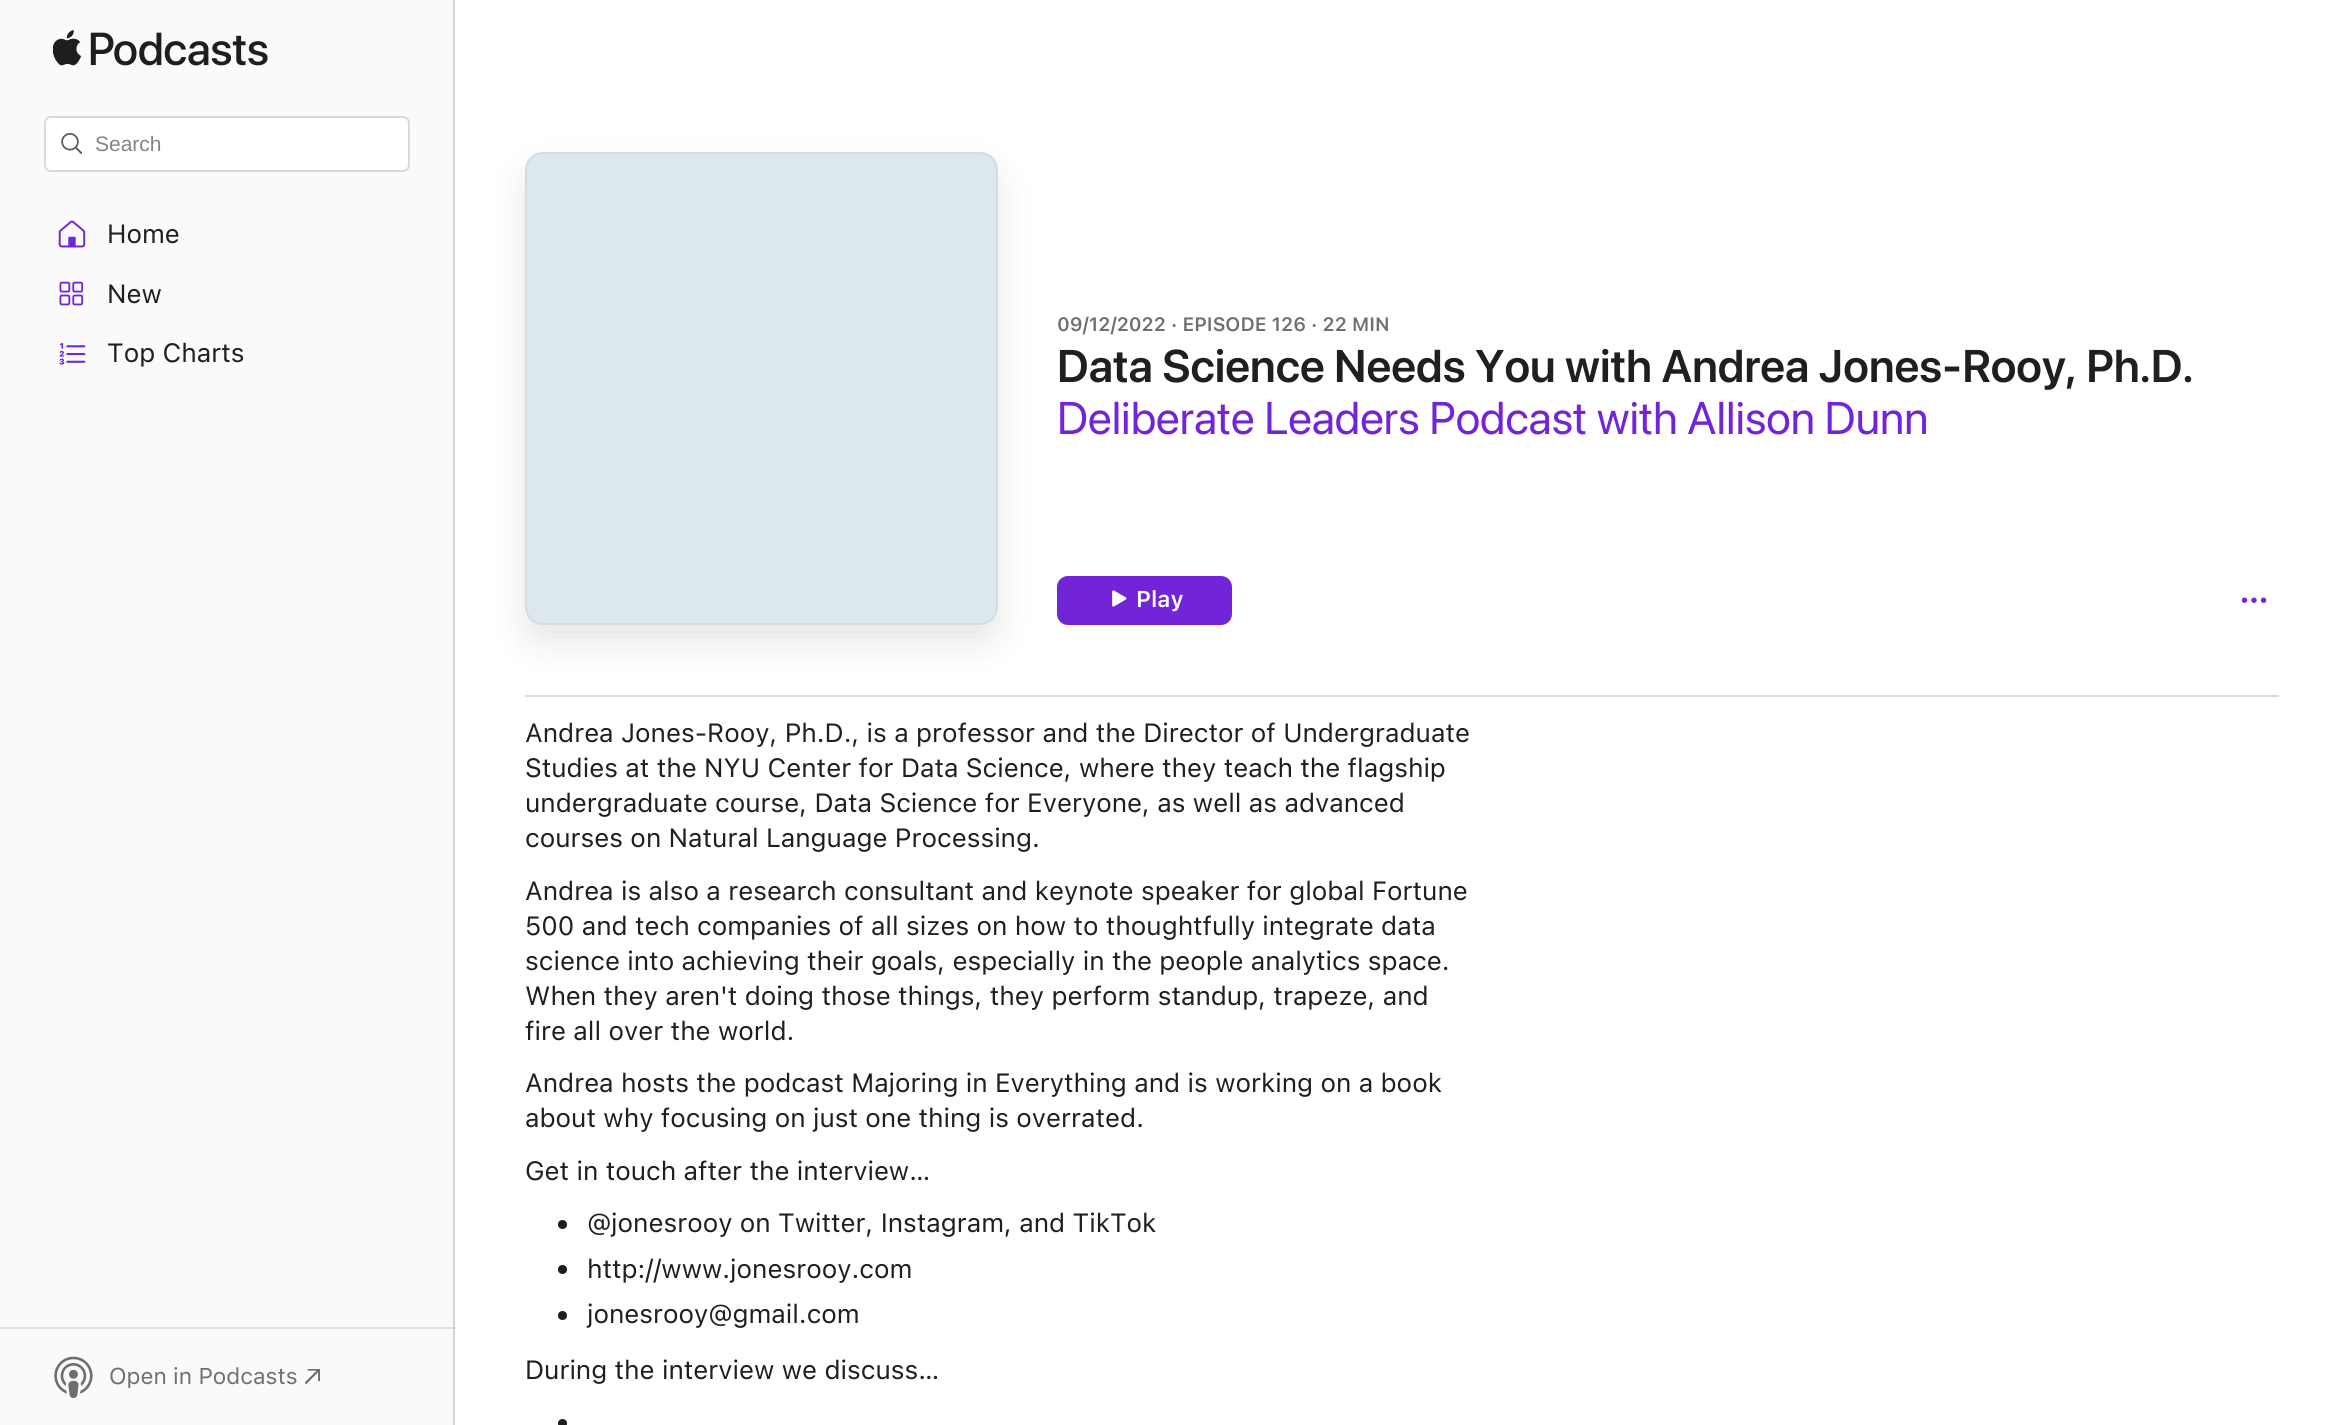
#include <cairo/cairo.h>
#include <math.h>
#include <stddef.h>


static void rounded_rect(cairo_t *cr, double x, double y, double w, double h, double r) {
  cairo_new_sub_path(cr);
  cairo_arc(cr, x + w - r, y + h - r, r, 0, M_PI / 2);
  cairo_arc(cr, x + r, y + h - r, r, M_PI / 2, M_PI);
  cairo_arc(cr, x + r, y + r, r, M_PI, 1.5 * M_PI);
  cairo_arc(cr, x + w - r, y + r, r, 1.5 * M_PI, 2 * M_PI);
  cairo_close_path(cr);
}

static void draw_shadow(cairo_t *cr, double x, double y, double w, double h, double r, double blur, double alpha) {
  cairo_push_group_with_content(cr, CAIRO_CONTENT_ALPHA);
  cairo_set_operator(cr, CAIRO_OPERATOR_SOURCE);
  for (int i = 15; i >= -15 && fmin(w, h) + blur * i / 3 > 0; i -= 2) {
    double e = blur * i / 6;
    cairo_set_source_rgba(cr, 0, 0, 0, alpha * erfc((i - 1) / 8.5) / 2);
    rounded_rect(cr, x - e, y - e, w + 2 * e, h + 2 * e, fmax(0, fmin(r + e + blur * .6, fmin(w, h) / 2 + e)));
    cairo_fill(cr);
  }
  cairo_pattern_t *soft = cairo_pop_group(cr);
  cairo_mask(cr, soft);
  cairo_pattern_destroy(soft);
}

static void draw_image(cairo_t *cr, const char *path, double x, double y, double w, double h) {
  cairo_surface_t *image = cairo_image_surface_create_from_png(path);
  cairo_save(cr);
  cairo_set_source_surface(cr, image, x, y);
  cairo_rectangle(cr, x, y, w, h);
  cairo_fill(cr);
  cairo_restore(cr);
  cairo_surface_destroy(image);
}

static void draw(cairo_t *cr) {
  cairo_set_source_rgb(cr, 1, 1, 1);
  cairo_paint(cr);
  cairo_set_source_rgb(cr, 250 / 255.0, 250 / 255.0, 250 / 255.0);
  cairo_rectangle(cr, 0, 0, 453, 1425);
  cairo_fill(cr);
  cairo_set_source_rgb(cr, 225 / 255.0, 225 / 255.0, 225 / 255.0);
  cairo_rectangle(cr, 0, 1327, 455, 2);
  cairo_fill(cr);
  cairo_set_source_rgb(cr, 213 / 255.0, 213 / 255.0, 213 / 255.0);
  cairo_rectangle(cr, 453, 0, 2, 1425);
  cairo_fill(cr);
  cairo_set_source_rgb(cr, 192 / 255.0, 192 / 255.0, 192 / 255.0);
  cairo_rectangle(cr, 453, 1327, 2, 2);
  cairo_fill(cr);
  draw_image(cr, "images/1.png", 53, 30, 215, 36);
  cairo_set_source_rgb(cr, 1, 1, 1);
  rounded_rect(cr, 45, 117, 364, 54, 6);
  cairo_fill_preserve(cr);
  cairo_set_source_rgb(cr, 217 / 255.0, 217 / 255.0, 217 / 255.0);
  cairo_stroke(cr);
  draw_image(cr, "images/2.png", 61, 133, 21, 21);
  draw_image(cr, "images/3.png", 58, 220, 28, 28);
  draw_image(cr, "images/4.png", 59, 281, 25, 25);
  draw_image(cr, "images/5.png", 59, 343, 27, 22);
  draw_image(cr, "images/6.png", 54, 1356, 39, 42);
  draw_image(cr, "images/7.png", 305, 1369, 15, 15);
  cairo_rectangle(cr, 525, 695, 1754, 2);
  cairo_fill(cr);
  cairo_set_source_rgb(cr, 0, 0, 0);
  draw_shadow(cr, 525, 170, 473, 472, 18, 17.5, 0.1);
  cairo_set_source_rgb(cr, 220 / 255.0, 232 / 255.0, 238 / 255.0);
  rounded_rect(cr, 525, 152, 473, 473, 18);
  cairo_fill(cr);
  rounded_rect(cr, 526, 153, 471, 471, 17);
  cairo_set_source_rgba(cr, 128 / 255.0, 128 / 255.0, 128 / 255.0, 0.1);
  cairo_stroke(cr);
  cairo_set_source_rgb(cr, 114 / 255.0, 36 / 255.0, 216 / 255.0);
  rounded_rect(cr, 1057, 576, 175, 49, 11);
  cairo_fill(cr);
  draw_image(cr, "images/8.png", 1112, 590, 15, 17);
  draw_image(cr, "images/9.png", 2241, 597, 26, 6);
  cairo_set_source_rgb(cr, 29 / 255.0, 29 / 255.0, 31 / 255.0);
  cairo_arc(cr, 562.5, 1224.5, 4.5, 0, 2 * M_PI);
  cairo_fill(cr);
  cairo_arc(cr, 562.5, 1269.5, 4.5, 0, 2 * M_PI);
  cairo_fill(cr);
  cairo_arc(cr, 562.5, 1315.5, 4.5, 0, 2 * M_PI);
  cairo_fill(cr);
  cairo_arc(cr, 562.5, 1423.5, 4.5, 0, 2 * M_PI);
  cairo_fill(cr);
  cairo_select_font_face(cr, "Liberation Sans", CAIRO_FONT_SLANT_NORMAL, CAIRO_FONT_WEIGHT_NORMAL);
  cairo_set_font_size(cr, 21);
  cairo_set_source_rgb(cr, 133 / 255.0, 133 / 255.0, 133 / 255.0);
  cairo_move_to(cr, 95, 151);
  cairo_show_text(cr, "Search");
  cairo_select_font_face(cr, "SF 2", CAIRO_FONT_SLANT_NORMAL, CAIRO_FONT_WEIGHT_NORMAL);
  cairo_set_font_size(cr, 26.25);
  cairo_set_source_rgb(cr, 31 / 255.0, 31 / 255.0, 31 / 255.0);
  cairo_move_to(cr, 107, 243);
  cairo_show_text(cr, "Home");
  cairo_move_to(cr, 107, 303);
  cairo_show_text(cr, "New");
  cairo_move_to(cr, 107, 362);
  cairo_show_text(cr, "Top Charts");
  cairo_set_font_size(cr, 22.75);
  cairo_set_source_rgb(cr, 112 / 255.0, 112 / 255.0, 112 / 255.0);
  cairo_move_to(cr, 109, 1384);
  cairo_show_text(cr, "Open in Podcasts");
  cairo_select_font_face(cr, "SF SemiBold", CAIRO_FONT_SLANT_NORMAL, CAIRO_FONT_WEIGHT_NORMAL);
  cairo_set_font_size(cr, 19.25);
  cairo_move_to(cr, 1057, 331);
  cairo_show_text(cr, "09/12/2022 · EPISODE 126 · 22 MIN");
  cairo_select_font_face(cr, "SF 2 SemiBold", CAIRO_FONT_SLANT_NORMAL, CAIRO_FONT_WEIGHT_NORMAL);
  cairo_set_font_size(cr, 45.5);
  cairo_set_source_rgb(cr, 31 / 255.0, 31 / 255.0, 31 / 255.0);
  cairo_move_to(cr, 1057, 382);
  cairo_show_text(cr, "Data Science Needs You with Andrea Jones-Rooy, Ph.D.");
  cairo_select_font_face(cr, "SF", CAIRO_FONT_SLANT_NORMAL, CAIRO_FONT_WEIGHT_NORMAL);
  cairo_set_source_rgb(cr, 114 / 255.0, 36 / 255.0, 216 / 255.0);
  cairo_move_to(cr, 1057, 434);
  cairo_show_text(cr, "Deliberate Leaders Podcast with Allison Dunn");
  cairo_select_font_face(cr, "SF SemiBold", CAIRO_FONT_SLANT_NORMAL, CAIRO_FONT_WEIGHT_NORMAL);
  cairo_set_font_size(cr, 22.75);
  cairo_set_source_rgb(cr, 1, 1, 1);
  cairo_move_to(cr, 1136, 607);
  cairo_show_text(cr, "Play");
  cairo_select_font_face(cr, "SF 2", CAIRO_FONT_SLANT_NORMAL, CAIRO_FONT_WEIGHT_NORMAL);
  cairo_set_font_size(cr, 26.25);
  cairo_set_source_rgb(cr, 31 / 255.0, 31 / 255.0, 31 / 255.0);
  cairo_move_to(cr, 525, 742);
  cairo_show_text(cr, "Andrea Jones-Rooy, Ph.D., is a professor and the Director of Undergraduate");
  cairo_move_to(cr, 525, 777);
  cairo_show_text(cr, "Studies at the NYU Center for Data Science, where they teach the flagship");
  cairo_move_to(cr, 525, 812);
  cairo_show_text(cr, "undergraduate course, Data Science for Everyone, as well as advanced");
  cairo_move_to(cr, 525, 847);
  cairo_show_text(cr, "courses on Natural Language Processing.");
  cairo_move_to(cr, 525, 900);
  cairo_show_text(cr, "Andrea is also a research consultant and keynote speaker for global Fortune");
  cairo_move_to(cr, 525, 935);
  cairo_show_text(cr, "500 and tech companies of all sizes on how to thoughtfully integrate data");
  cairo_move_to(cr, 525, 970);
  cairo_show_text(cr, "science into achieving their goals, especially in the people analytics space.");
  cairo_move_to(cr, 525, 1005);
  cairo_show_text(cr, "When they aren't doing those things, they perform standup, trapeze, and");
  cairo_move_to(cr, 525, 1040);
  cairo_show_text(cr, "fire all over the world.");
  cairo_move_to(cr, 525, 1092);
  cairo_show_text(cr, "Andrea hosts the podcast Majoring in Everything and is working on a book");
  cairo_move_to(cr, 525, 1127);
  cairo_show_text(cr, "about why focusing on just one thing is overrated.");
  cairo_move_to(cr, 525, 1180);
  cairo_show_text(cr, "Get in touch after the interview…");
  cairo_move_to(cr, 587, 1232);
  cairo_show_text(cr, "@jonesrooy on Twitter, Instagram, and TikTok");
  cairo_move_to(cr, 587, 1278);
  cairo_show_text(cr, "http://www.jonesrooy.com");
  cairo_move_to(cr, 587, 1323);
  cairo_show_text(cr, "jonesrooy@gmail.com");
  cairo_move_to(cr, 525, 1379);
  cairo_show_text(cr, "During the interview we discuss…");
}

int main(void) {
  cairo_surface_t *surface = cairo_image_surface_create(CAIRO_FORMAT_RGB24, 2348, 1425);
  cairo_t *cr = cairo_create(surface);
  cairo_font_options_t *options = cairo_font_options_create();
  cairo_font_options_set_hint_metrics(options, CAIRO_HINT_METRICS_OFF);
  cairo_font_options_set_hint_style(options, CAIRO_HINT_STYLE_NONE);
  cairo_set_font_options(cr, options);
  cairo_set_miter_limit(cr, 4);
  draw(cr);
  cairo_surface_write_to_png(surface, "out.png");
  cairo_font_options_destroy(options);
  cairo_destroy(cr);
  cairo_surface_destroy(surface);
  return 0;
}
